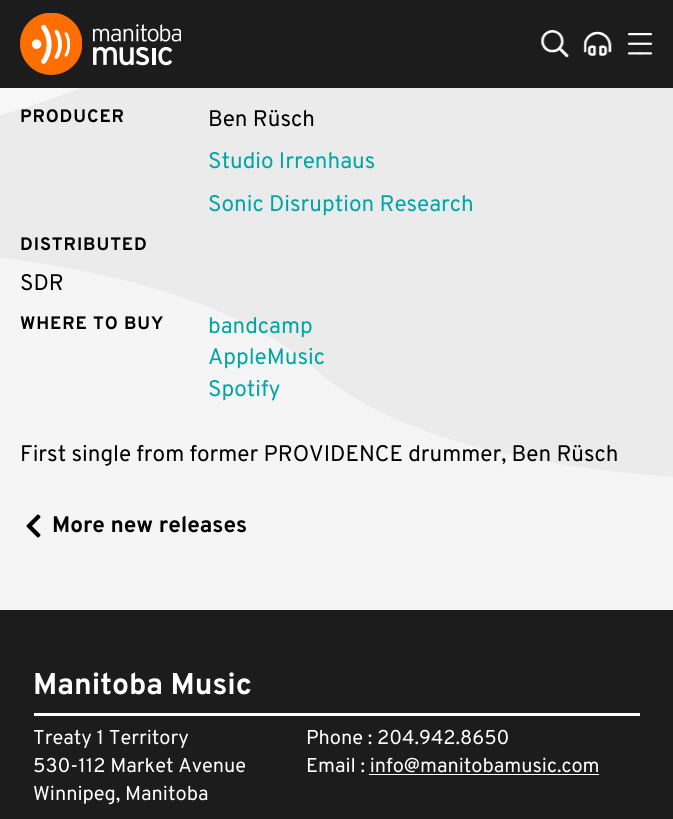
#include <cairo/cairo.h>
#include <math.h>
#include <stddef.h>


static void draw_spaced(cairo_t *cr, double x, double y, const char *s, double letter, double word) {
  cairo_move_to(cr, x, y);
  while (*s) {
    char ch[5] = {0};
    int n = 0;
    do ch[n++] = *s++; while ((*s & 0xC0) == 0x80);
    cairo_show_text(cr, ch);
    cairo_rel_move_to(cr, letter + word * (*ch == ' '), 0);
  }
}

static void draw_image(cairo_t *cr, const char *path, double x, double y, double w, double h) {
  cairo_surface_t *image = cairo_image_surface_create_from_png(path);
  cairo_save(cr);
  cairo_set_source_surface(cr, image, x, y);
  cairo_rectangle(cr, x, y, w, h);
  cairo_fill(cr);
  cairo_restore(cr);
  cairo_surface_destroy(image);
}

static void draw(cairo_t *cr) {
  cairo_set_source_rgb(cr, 1, 1, 1);
  cairo_paint(cr);
  cairo_set_source_rgb(cr, 248 / 255.0, 248 / 255.0, 248 / 255.0);
  cairo_new_path(cr);
  cairo_move_to(cr, -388, -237);
  cairo_curve_to(cr, -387, -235, -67, -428, 264, -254);
  cairo_curve_to(cr, 594, -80, 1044, -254, 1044, -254);
  cairo_line_to(cr, 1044, 60);
  cairo_line_to(cr, -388, 162);
  cairo_close_path(cr);
  cairo_fill(cr);
  cairo_set_source_rgb(cr, 235 / 255.0, 235 / 255.0, 235 / 255.0);
  cairo_new_path(cr);
  cairo_move_to(cr, 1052, -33);
  cairo_curve_to(cr, 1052, -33, 531, -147, 208, 29);
  cairo_curve_to(cr, -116, 205, -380, 142, -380, 142);
  cairo_line_to(cr, -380, 471);
  cairo_line_to(cr, 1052, 504);
  cairo_close_path(cr);
  cairo_fill(cr);
  cairo_set_source_rgb(cr, 28 / 255.0, 28 / 255.0, 28 / 255.0);
  cairo_rectangle(cr, 0, 0, 673, 88);
  cairo_fill(cr);
  draw_image(cr, "images/1.png", 20, 13, 161, 62);
  draw_image(cr, "images/2.png", 541, 30, 28, 28);
  draw_image(cr, "images/3.png", 583, 31, 29, 25);
  draw_image(cr, "images/4.png", 627, 33, 26, 22);
  cairo_set_source_rgb(cr, 245 / 255.0, 245 / 255.0, 245 / 255.0);
  cairo_new_path(cr);
  cairo_move_to(cr, -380, 253);
  cairo_curve_to(cr, -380, 253, 124, 202, 316, 370);
  cairo_curve_to(cr, 508, 537, 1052, 465, 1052, 465);
  cairo_line_to(cr, 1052, 610);
  cairo_line_to(cr, -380, 610);
  cairo_close_path(cr);
  cairo_fill(cr);
  draw_image(cr, "images/5.png", 26, 514, 15, 24);
  cairo_set_source_rgb(cr, 28 / 255.0, 28 / 255.0, 28 / 255.0);
  cairo_rectangle(cr, 0, 610, 673, 209);
  cairo_fill(cr);
  cairo_set_source_rgb(cr, 1, 1, 1);
  cairo_rectangle(cr, 34, 713, 606, 3);
  cairo_fill(cr);
  cairo_rectangle(cr, 369, 774, 230, 1);
  cairo_fill(cr);
  cairo_select_font_face(cr, "Overpass", CAIRO_FONT_SLANT_NORMAL, CAIRO_FONT_WEIGHT_BOLD);
  cairo_set_font_size(cr, 18);
  cairo_set_source_rgb(cr, 0, 0, 0);
  draw_spaced(cr, 20, 122, "PRODUCER", 0.9, 0);
  cairo_select_font_face(cr, "Overpass", CAIRO_FONT_SLANT_NORMAL, CAIRO_FONT_WEIGHT_NORMAL);
  cairo_set_font_size(cr, 22.5);
  cairo_move_to(cr, 208, 126);
  cairo_show_text(cr, "Ben Rüsch");
  cairo_set_source_rgb(cr, 0, 165 / 255.0, 165 / 255.0);
  cairo_move_to(cr, 208, 168);
  cairo_show_text(cr, "Studio Irrenhaus");
  cairo_move_to(cr, 208, 211);
  cairo_show_text(cr, "Sonic Disruption Research");
  cairo_select_font_face(cr, "Overpass", CAIRO_FONT_SLANT_NORMAL, CAIRO_FONT_WEIGHT_BOLD);
  cairo_set_font_size(cr, 18);
  cairo_set_source_rgb(cr, 0, 0, 0);
  draw_spaced(cr, 20, 250, "DISTRIBUTED", 0.9, 0);
  cairo_select_font_face(cr, "Overpass", CAIRO_FONT_SLANT_NORMAL, CAIRO_FONT_WEIGHT_NORMAL);
  cairo_set_font_size(cr, 22.5);
  cairo_move_to(cr, 20, 290);
  cairo_show_text(cr, "SDR");
  cairo_select_font_face(cr, "Overpass", CAIRO_FONT_SLANT_NORMAL, CAIRO_FONT_WEIGHT_BOLD);
  cairo_set_font_size(cr, 18);
  draw_spaced(cr, 20, 329, "WHERE TO BUY", 0.9, 0);
  cairo_select_font_face(cr, "Overpass", CAIRO_FONT_SLANT_NORMAL, CAIRO_FONT_WEIGHT_NORMAL);
  cairo_set_font_size(cr, 22.5);
  cairo_set_source_rgb(cr, 0, 165 / 255.0, 165 / 255.0);
  cairo_move_to(cr, 208, 333);
  cairo_show_text(cr, "bandcamp");
  cairo_move_to(cr, 208, 364);
  cairo_show_text(cr, "AppleMusic");
  cairo_move_to(cr, 208, 396);
  cairo_show_text(cr, "Spotify");
  cairo_set_source_rgb(cr, 0, 0, 0);
  cairo_move_to(cr, 20, 461);
  cairo_show_text(cr, "First single from former PROVIDENCE drummer, Ben Rüsch");
  cairo_select_font_face(cr, "Overpass", CAIRO_FONT_SLANT_NORMAL, CAIRO_FONT_WEIGHT_BOLD);
  cairo_move_to(cr, 52, 532);
  cairo_show_text(cr, "More new releases");
  cairo_set_font_size(cr, 30);
  cairo_set_source_rgb(cr, 1, 1, 1);
  cairo_move_to(cr, 33, 694);
  cairo_show_text(cr, "Manitoba Music");
  cairo_select_font_face(cr, "Overpass", CAIRO_FONT_SLANT_NORMAL, CAIRO_FONT_WEIGHT_NORMAL);
  cairo_set_font_size(cr, 20);
  cairo_move_to(cr, 33, 744);
  cairo_show_text(cr, "Treaty 1 Territory");
  cairo_move_to(cr, 33, 772);
  cairo_show_text(cr, "530-112 Market Avenue");
  cairo_move_to(cr, 33, 800);
  cairo_show_text(cr, "Winnipeg, Manitoba");
  cairo_move_to(cr, 306, 744);
  cairo_show_text(cr, "Phone : 204.942.8650");
  cairo_move_to(cr, 306, 772);
  cairo_show_text(cr, "Email : info@manitobamusic.com");
}

int main(void) {
  cairo_surface_t *surface = cairo_image_surface_create(CAIRO_FORMAT_RGB24, 673, 819);
  cairo_t *cr = cairo_create(surface);
  cairo_font_options_t *options = cairo_font_options_create();
  cairo_font_options_set_hint_metrics(options, CAIRO_HINT_METRICS_OFF);
  cairo_font_options_set_hint_style(options, CAIRO_HINT_STYLE_NONE);
  cairo_set_font_options(cr, options);
  cairo_set_miter_limit(cr, 4);
  draw(cr);
  cairo_surface_write_to_png(surface, "out.png");
  cairo_font_options_destroy(options);
  cairo_destroy(cr);
  cairo_surface_destroy(surface);
  return 0;
}
